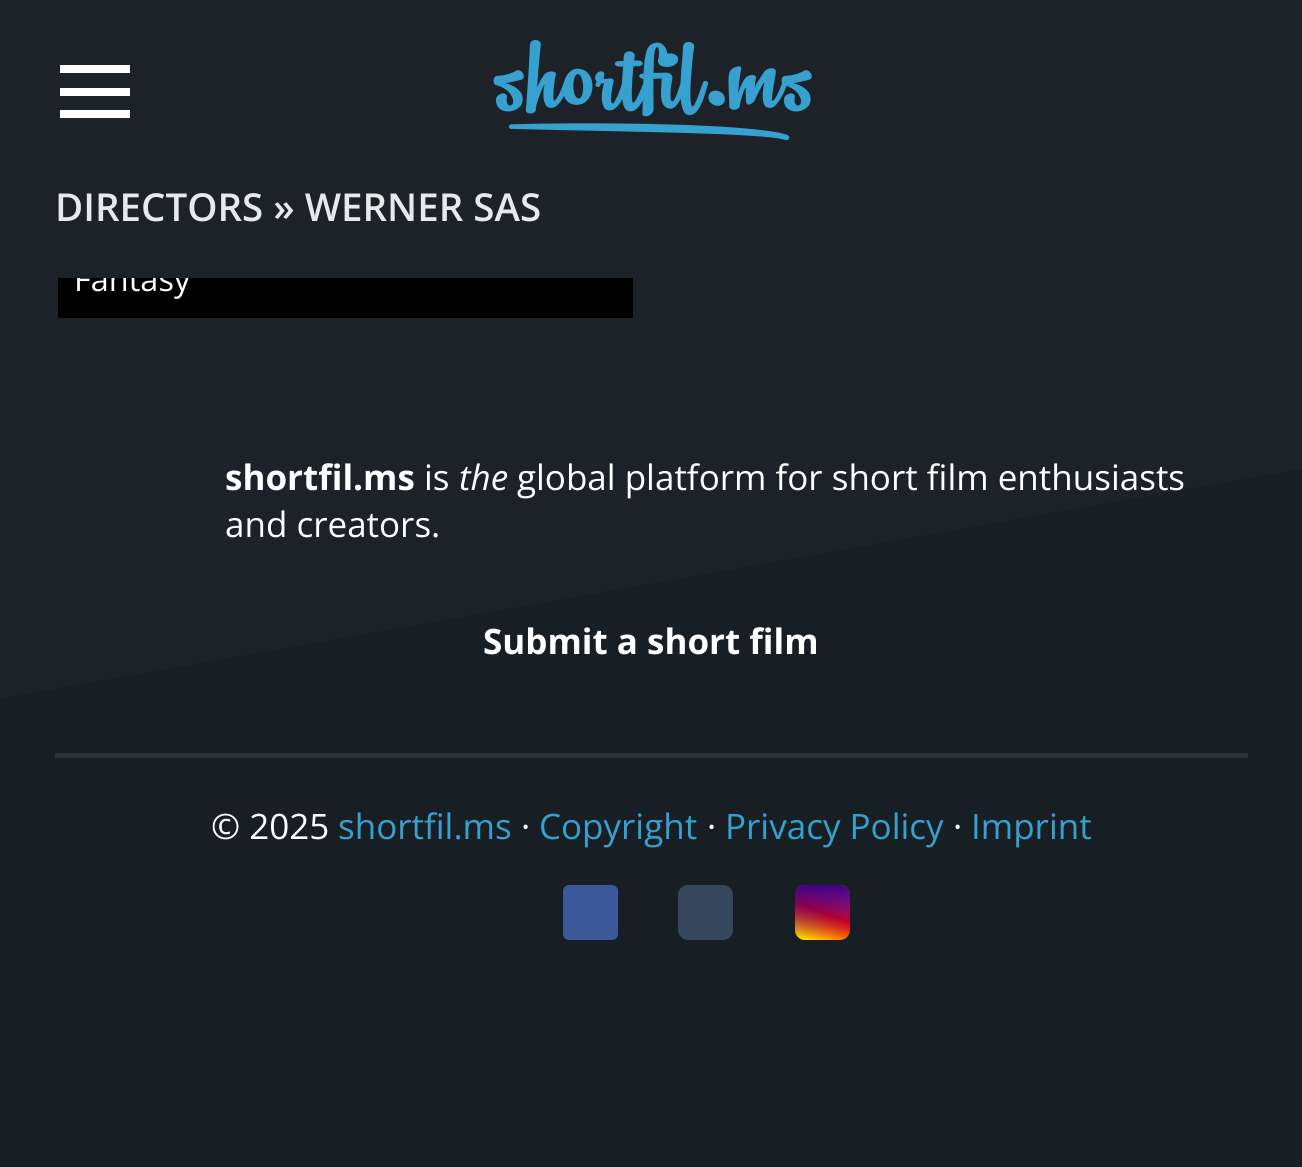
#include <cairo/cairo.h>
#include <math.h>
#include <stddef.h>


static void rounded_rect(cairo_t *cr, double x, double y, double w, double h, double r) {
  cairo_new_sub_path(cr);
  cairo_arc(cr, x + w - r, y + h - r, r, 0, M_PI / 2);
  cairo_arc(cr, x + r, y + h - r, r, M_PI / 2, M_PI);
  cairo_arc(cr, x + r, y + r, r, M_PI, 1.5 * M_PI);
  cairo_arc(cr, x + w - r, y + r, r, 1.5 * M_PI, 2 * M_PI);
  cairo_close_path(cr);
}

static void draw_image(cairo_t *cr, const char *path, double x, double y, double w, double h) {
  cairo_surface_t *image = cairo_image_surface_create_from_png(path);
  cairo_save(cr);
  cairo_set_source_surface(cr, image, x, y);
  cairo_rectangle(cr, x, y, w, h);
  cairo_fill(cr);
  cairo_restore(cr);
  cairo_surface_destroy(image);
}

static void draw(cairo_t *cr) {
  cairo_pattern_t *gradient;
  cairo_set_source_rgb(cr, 1, 1, 1);
  cairo_paint(cr);
  gradient = cairo_pattern_create_linear(532, -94, 771, 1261);
  cairo_pattern_add_color_stop_rgba(gradient, 0.5, 28 / 255.0, 34 / 255.0, 40 / 255.0, 1);
  cairo_pattern_add_color_stop_rgba(gradient, 0.5, 24 / 255.0, 31 / 255.0, 36 / 255.0, 1);
  cairo_set_source(cr, gradient);
  cairo_pattern_destroy(gradient);
  cairo_rectangle(cr, 0, 0, 1302, 1167);
  cairo_fill(cr);
  cairo_set_source_rgb(cr, 1, 1, 1);
  cairo_rectangle(cr, 60, 88, 70, 8);
  cairo_fill(cr);
  cairo_rectangle(cr, 60, 65, 70, 8);
  cairo_fill(cr);
  cairo_rectangle(cr, 60, 110, 70, 8);
  cairo_fill(cr);
  draw_image(cr, "images/1.png", 493, 40, 319, 100);
  cairo_set_source_rgb(cr, 0, 0, 0);
  cairo_rectangle(cr, 58, 278, 575, 40);
  cairo_fill(cr);
  cairo_set_source_rgb(cr, 45 / 255.0, 50 / 255.0, 58 / 255.0);
  cairo_rectangle(cr, 55, 753, 1193, 5);
  cairo_fill(cr);
  cairo_set_source_rgb(cr, 59 / 255.0, 89 / 255.0, 152 / 255.0);
  rounded_rect(cr, 563, 885, 55, 55, 6);
  cairo_fill(cr);
  cairo_set_source_rgb(cr, 54 / 255.0, 70 / 255.0, 93 / 255.0);
  rounded_rect(cr, 678, 885, 55, 55, 10);
  cairo_fill(cr);
  gradient = cairo_pattern_create_linear(835, 879, 810, 946);
  cairo_pattern_add_color_stop_rgba(gradient, 0, 208 / 255.0, 71 / 255.0, 209 / 255.0, 1);
  cairo_pattern_add_color_stop_rgba(gradient, 0.5, 1, 0, 0, 1);
  cairo_pattern_add_color_stop_rgba(gradient, 1, 1, 1, 0, 1);
  cairo_set_source(cr, gradient);
  cairo_pattern_destroy(gradient);
  rounded_rect(cr, 795, 885, 55, 55, 10);
  cairo_fill(cr);
  gradient = cairo_pattern_create_linear(823, 885, 823, 940);
  cairo_pattern_add_color_stop_rgba(gradient, 0, 64 / 255.0, 0, 128 / 255.0, 1);
  cairo_pattern_add_color_stop_rgba(gradient, 1, 64 / 255.0, 0, 128 / 255.0, 0);
  cairo_set_source(cr, gradient);
  cairo_pattern_destroy(gradient);
  rounded_rect(cr, 795, 885, 55, 55, 10);
  cairo_fill(cr);
  cairo_select_font_face(cr, "Open Sans SemiBold", CAIRO_FONT_SLANT_NORMAL, CAIRO_FONT_WEIGHT_NORMAL);
  cairo_set_font_size(cr, 38.5);
  cairo_set_source_rgb(cr, 232 / 255.0, 233 / 255.0, 234 / 255.0);
  cairo_move_to(cr, 55, 221);
  cairo_show_text(cr, "DIRECTORS » WERNER SAS");
  cairo_save(cr);
  cairo_rectangle(cr, 58, 278, 452, 40);
  cairo_clip(cr);
  cairo_select_font_face(cr, "Open Sans", CAIRO_FONT_SLANT_NORMAL, CAIRO_FONT_WEIGHT_NORMAL);
  cairo_set_font_size(cr, 32.5);
  cairo_set_source_rgb(cr, 1, 1, 1);
  cairo_move_to(cr, 74, 291);
  cairo_show_text(cr, "Fantasy");
  cairo_restore(cr);
  cairo_select_font_face(cr, "Open Sans", CAIRO_FONT_SLANT_NORMAL, CAIRO_FONT_WEIGHT_BOLD);
  cairo_set_font_size(cr, 35);
  cairo_set_source_rgb(cr, 1, 1, 1);
  cairo_move_to(cr, 225, 490);
  cairo_show_text(cr, "shortfil.ms");
  cairo_select_font_face(cr, "Open Sans", CAIRO_FONT_SLANT_NORMAL, CAIRO_FONT_WEIGHT_NORMAL);
  cairo_move_to(cr, 424, 490);
  cairo_show_text(cr, "is");
  cairo_select_font_face(cr, "Open Sans", CAIRO_FONT_SLANT_ITALIC, CAIRO_FONT_WEIGHT_NORMAL);
  cairo_move_to(cr, 459, 490);
  cairo_show_text(cr, "the");
  cairo_select_font_face(cr, "Open Sans", CAIRO_FONT_SLANT_NORMAL, CAIRO_FONT_WEIGHT_NORMAL);
  cairo_move_to(cr, 517, 490);
  cairo_show_text(cr, "global platform for short film enthusiasts");
  cairo_move_to(cr, 225, 537);
  cairo_show_text(cr, "and creators.");
  cairo_select_font_face(cr, "Open Sans", CAIRO_FONT_SLANT_NORMAL, CAIRO_FONT_WEIGHT_BOLD);
  cairo_move_to(cr, 483, 654);
  cairo_show_text(cr, "Submit a short film");
  cairo_select_font_face(cr, "Open Sans", CAIRO_FONT_SLANT_NORMAL, CAIRO_FONT_WEIGHT_NORMAL);
  cairo_move_to(cr, 211, 839);
  cairo_show_text(cr, "© 2025");
  cairo_set_source_rgb(cr, 54 / 255.0, 160 / 255.0, 206 / 255.0);
  cairo_move_to(cr, 338, 839);
  cairo_show_text(cr, "shortfil.ms");
  cairo_set_source_rgb(cr, 1, 1, 1);
  cairo_move_to(cr, 521, 839);
  cairo_show_text(cr, "·");
  cairo_set_source_rgb(cr, 54 / 255.0, 160 / 255.0, 206 / 255.0);
  cairo_move_to(cr, 539, 839);
  cairo_show_text(cr, "Copyright");
  cairo_set_source_rgb(cr, 1, 1, 1);
  cairo_move_to(cr, 707, 839);
  cairo_show_text(cr, "·");
  cairo_set_source_rgb(cr, 54 / 255.0, 160 / 255.0, 206 / 255.0);
  cairo_move_to(cr, 725, 839);
  cairo_show_text(cr, "Privacy Policy");
  cairo_set_source_rgb(cr, 1, 1, 1);
  cairo_move_to(cr, 953, 839);
  cairo_show_text(cr, "·");
  cairo_set_source_rgb(cr, 54 / 255.0, 160 / 255.0, 206 / 255.0);
  cairo_move_to(cr, 971, 839);
  cairo_show_text(cr, "Imprint");
}

int main(void) {
  cairo_surface_t *surface = cairo_image_surface_create(CAIRO_FORMAT_RGB24, 1302, 1167);
  cairo_t *cr = cairo_create(surface);
  cairo_font_options_t *options = cairo_font_options_create();
  cairo_font_options_set_hint_metrics(options, CAIRO_HINT_METRICS_OFF);
  cairo_font_options_set_hint_style(options, CAIRO_HINT_STYLE_NONE);
  cairo_set_font_options(cr, options);
  cairo_set_miter_limit(cr, 4);
  draw(cr);
  cairo_surface_write_to_png(surface, "out.png");
  cairo_font_options_destroy(options);
  cairo_destroy(cr);
  cairo_surface_destroy(surface);
  return 0;
}
